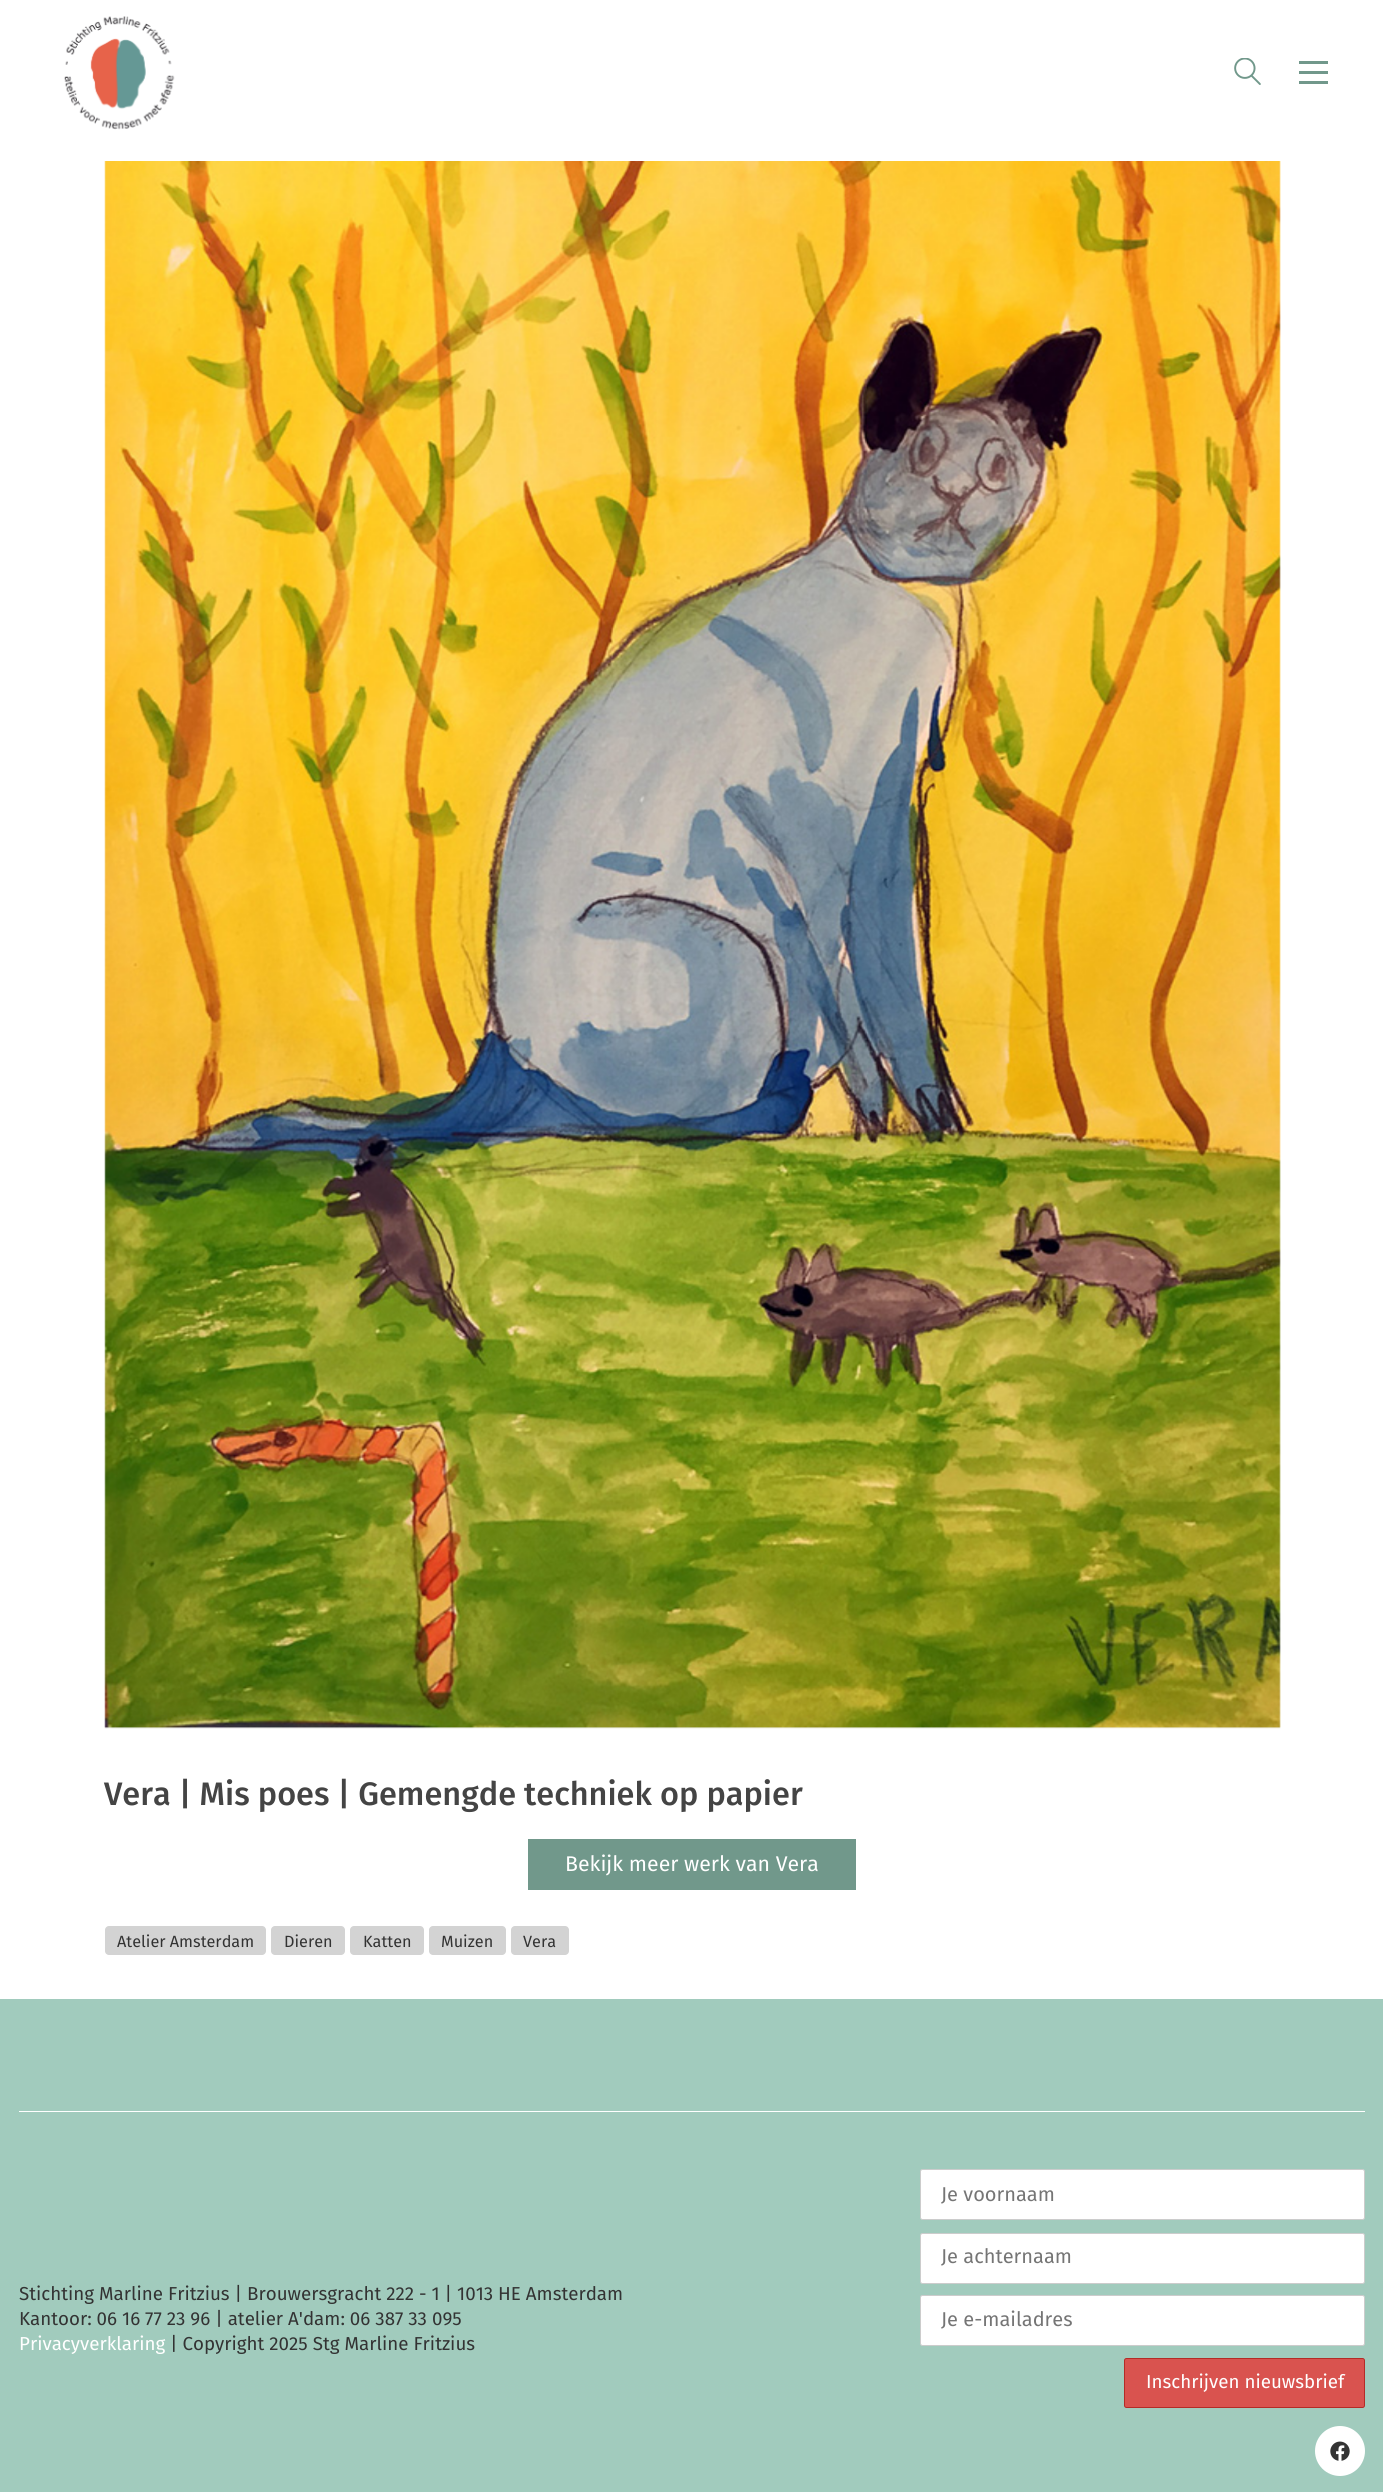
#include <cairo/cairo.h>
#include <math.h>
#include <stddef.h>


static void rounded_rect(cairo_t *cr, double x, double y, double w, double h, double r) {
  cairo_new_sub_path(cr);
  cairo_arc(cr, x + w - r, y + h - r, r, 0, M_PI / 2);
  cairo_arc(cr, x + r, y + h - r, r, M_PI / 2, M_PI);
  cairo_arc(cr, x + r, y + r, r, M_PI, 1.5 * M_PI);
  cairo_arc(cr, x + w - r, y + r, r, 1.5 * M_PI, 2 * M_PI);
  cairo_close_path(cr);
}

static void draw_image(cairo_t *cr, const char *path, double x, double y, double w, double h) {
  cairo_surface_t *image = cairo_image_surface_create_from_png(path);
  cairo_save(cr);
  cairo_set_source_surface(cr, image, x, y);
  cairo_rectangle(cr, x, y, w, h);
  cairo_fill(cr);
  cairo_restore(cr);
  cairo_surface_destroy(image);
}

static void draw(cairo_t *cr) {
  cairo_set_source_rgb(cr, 1, 1, 1);
  cairo_paint(cr);
  draw_image(cr, "images/1.png", 64, 16, 111, 114);
  draw_image(cr, "images/2.png", 1234, 58, 27, 27);
  cairo_set_source_rgb(cr, 113 / 255.0, 152 / 255.0, 139 / 255.0);
  cairo_rectangle(cr, 1299, 61, 29, 3);
  cairo_fill(cr);
  cairo_rectangle(cr, 1299, 71, 29, 3);
  cairo_fill(cr);
  cairo_rectangle(cr, 1299, 81, 29, 3);
  cairo_fill(cr);
  cairo_set_source_rgb(cr, 238 / 255.0, 238 / 255.0, 238 / 255.0);
  cairo_rectangle(cr, 105, 161, 1175, 1567);
  cairo_fill(cr);
  draw_image(cr, "images/3.png", 104, 161, 1177, 1568);
  cairo_set_source_rgb(cr, 113 / 255.0, 152 / 255.0, 139 / 255.0);
  cairo_rectangle(cr, 528, 1839, 328, 51);
  cairo_fill(cr);
  cairo_set_source_rgb(cr, 211 / 255.0, 211 / 255.0, 211 / 255.0);
  rounded_rect(cr, 105, 1926, 161, 29, 4);
  cairo_fill(cr);
  rounded_rect(cr, 271, 1926, 74, 29, 4);
  cairo_fill(cr);
  rounded_rect(cr, 350, 1926, 74, 29, 4);
  cairo_fill(cr);
  rounded_rect(cr, 429, 1926, 77, 29, 4);
  cairo_fill(cr);
  rounded_rect(cr, 511, 1926, 58, 29, 4);
  cairo_fill(cr);
  cairo_set_source_rgb(cr, 161 / 255.0, 203 / 255.0, 189 / 255.0);
  cairo_rectangle(cr, 0, 1999, 1383, 493);
  cairo_fill(cr);
  cairo_set_source_rgb(cr, 1, 1, 1);
  cairo_rectangle(cr, 19, 2111, 1346, 1);
  cairo_fill(cr);
  rounded_rect(cr, 920.5, 2169.5, 444, 50, 2);
  cairo_fill_preserve(cr);
  cairo_set_source_rgb(cr, 204 / 255.0, 204 / 255.0, 204 / 255.0);
  cairo_set_line_width(cr, 1);
  cairo_stroke(cr);
  cairo_set_source_rgb(cr, 1, 1, 1);
  rounded_rect(cr, 920.5, 2233.5, 444, 50, 2);
  cairo_fill_preserve(cr);
  cairo_set_source_rgb(cr, 204 / 255.0, 204 / 255.0, 204 / 255.0);
  cairo_stroke(cr);
  cairo_set_source_rgb(cr, 1, 1, 1);
  rounded_rect(cr, 920.5, 2295.5, 444, 50, 2);
  cairo_fill_preserve(cr);
  cairo_set_source_rgb(cr, 204 / 255.0, 204 / 255.0, 204 / 255.0);
  cairo_stroke(cr);
  cairo_set_source_rgb(cr, 217 / 255.0, 83 / 255.0, 79 / 255.0);
  rounded_rect(cr, 1124.5, 2358.5, 240, 49, 2);
  cairo_fill_preserve(cr);
  cairo_set_source_rgb(cr, 181 / 255.0, 43 / 255.0, 39 / 255.0);
  cairo_stroke(cr);
  cairo_set_source_rgb(cr, 1, 1, 1);
  cairo_arc(cr, 1340, 2451, 25, 0, 2 * M_PI);
  cairo_fill(cr);
  draw_image(cr, "images/4.png", 1330, 2441, 20, 20);
  cairo_select_font_face(cr, "Fira Sans Medium", CAIRO_FONT_SLANT_NORMAL, CAIRO_FONT_WEIGHT_NORMAL);
  cairo_set_font_size(cr, 32.5);
  cairo_set_source_rgb(cr, 68 / 255.0, 68 / 255.0, 68 / 255.0);
  cairo_move_to(cr, 104, 1805);
  cairo_show_text(cr, "Vera | Mis poes | Gemengde techniek op papier");
  cairo_select_font_face(cr, "Fira Sans", CAIRO_FONT_SLANT_NORMAL, CAIRO_FONT_WEIGHT_NORMAL);
  cairo_set_font_size(cr, 21.25);
  cairo_set_source_rgb(cr, 1, 1, 1);
  cairo_move_to(cr, 565, 1871);
  cairo_show_text(cr, "Bekijk meer werk van Vera");
  cairo_set_font_size(cr, 16.25);
  cairo_set_source_rgb(cr, 51 / 255.0, 51 / 255.0, 51 / 255.0);
  cairo_move_to(cr, 117, 1947);
  cairo_show_text(cr, "Atelier Amsterdam");
  cairo_move_to(cr, 284, 1947);
  cairo_show_text(cr, "Dieren");
  cairo_move_to(cr, 363, 1947);
  cairo_show_text(cr, "Katten");
  cairo_move_to(cr, 441, 1947);
  cairo_show_text(cr, "Muizen");
  cairo_move_to(cr, 523, 1947);
  cairo_show_text(cr, "Vera");
  cairo_set_font_size(cr, 18.75);
  cairo_move_to(cr, 19, 2300);
  cairo_show_text(cr, "Stichting Marline Fritzius | Brouwersgracht 222 - 1 | 1013 HE Amsterdam");
  cairo_move_to(cr, 19, 2325);
  cairo_show_text(cr, "Kantoor: 06 16 77 23 96 | atelier A'dam: 06 387 33 095");
  cairo_set_source_rgb(cr, 1, 1, 1);
  cairo_move_to(cr, 19, 2350);
  cairo_show_text(cr, "Privacyverklaring");
  cairo_set_source_rgb(cr, 51 / 255.0, 51 / 255.0, 51 / 255.0);
  cairo_move_to(cr, 170, 2350);
  cairo_show_text(cr, "| Copyright 2025 Stg Marline Fritzius");
  cairo_set_font_size(cr, 20);
  cairo_set_source_rgb(cr, 117 / 255.0, 117 / 255.0, 117 / 255.0);
  cairo_move_to(cr, 941, 2201);
  cairo_show_text(cr, "Je voornaam");
  cairo_move_to(cr, 941, 2263);
  cairo_show_text(cr, "Je achternaam");
  cairo_move_to(cr, 941, 2326);
  cairo_show_text(cr, "Je e-mailadres");
  cairo_set_font_size(cr, 18.75);
  cairo_set_source_rgb(cr, 1, 1, 1);
  cairo_move_to(cr, 1146, 2388);
  cairo_show_text(cr, "Inschrijven nieuwsbrief");
}

int main(void) {
  cairo_surface_t *surface = cairo_image_surface_create(CAIRO_FORMAT_RGB24, 1383, 2492);
  cairo_t *cr = cairo_create(surface);
  cairo_font_options_t *options = cairo_font_options_create();
  cairo_font_options_set_hint_metrics(options, CAIRO_HINT_METRICS_OFF);
  cairo_font_options_set_hint_style(options, CAIRO_HINT_STYLE_NONE);
  cairo_set_font_options(cr, options);
  cairo_set_miter_limit(cr, 4);
  draw(cr);
  cairo_surface_write_to_png(surface, "out.png");
  cairo_font_options_destroy(options);
  cairo_destroy(cr);
  cairo_surface_destroy(surface);
  return 0;
}
